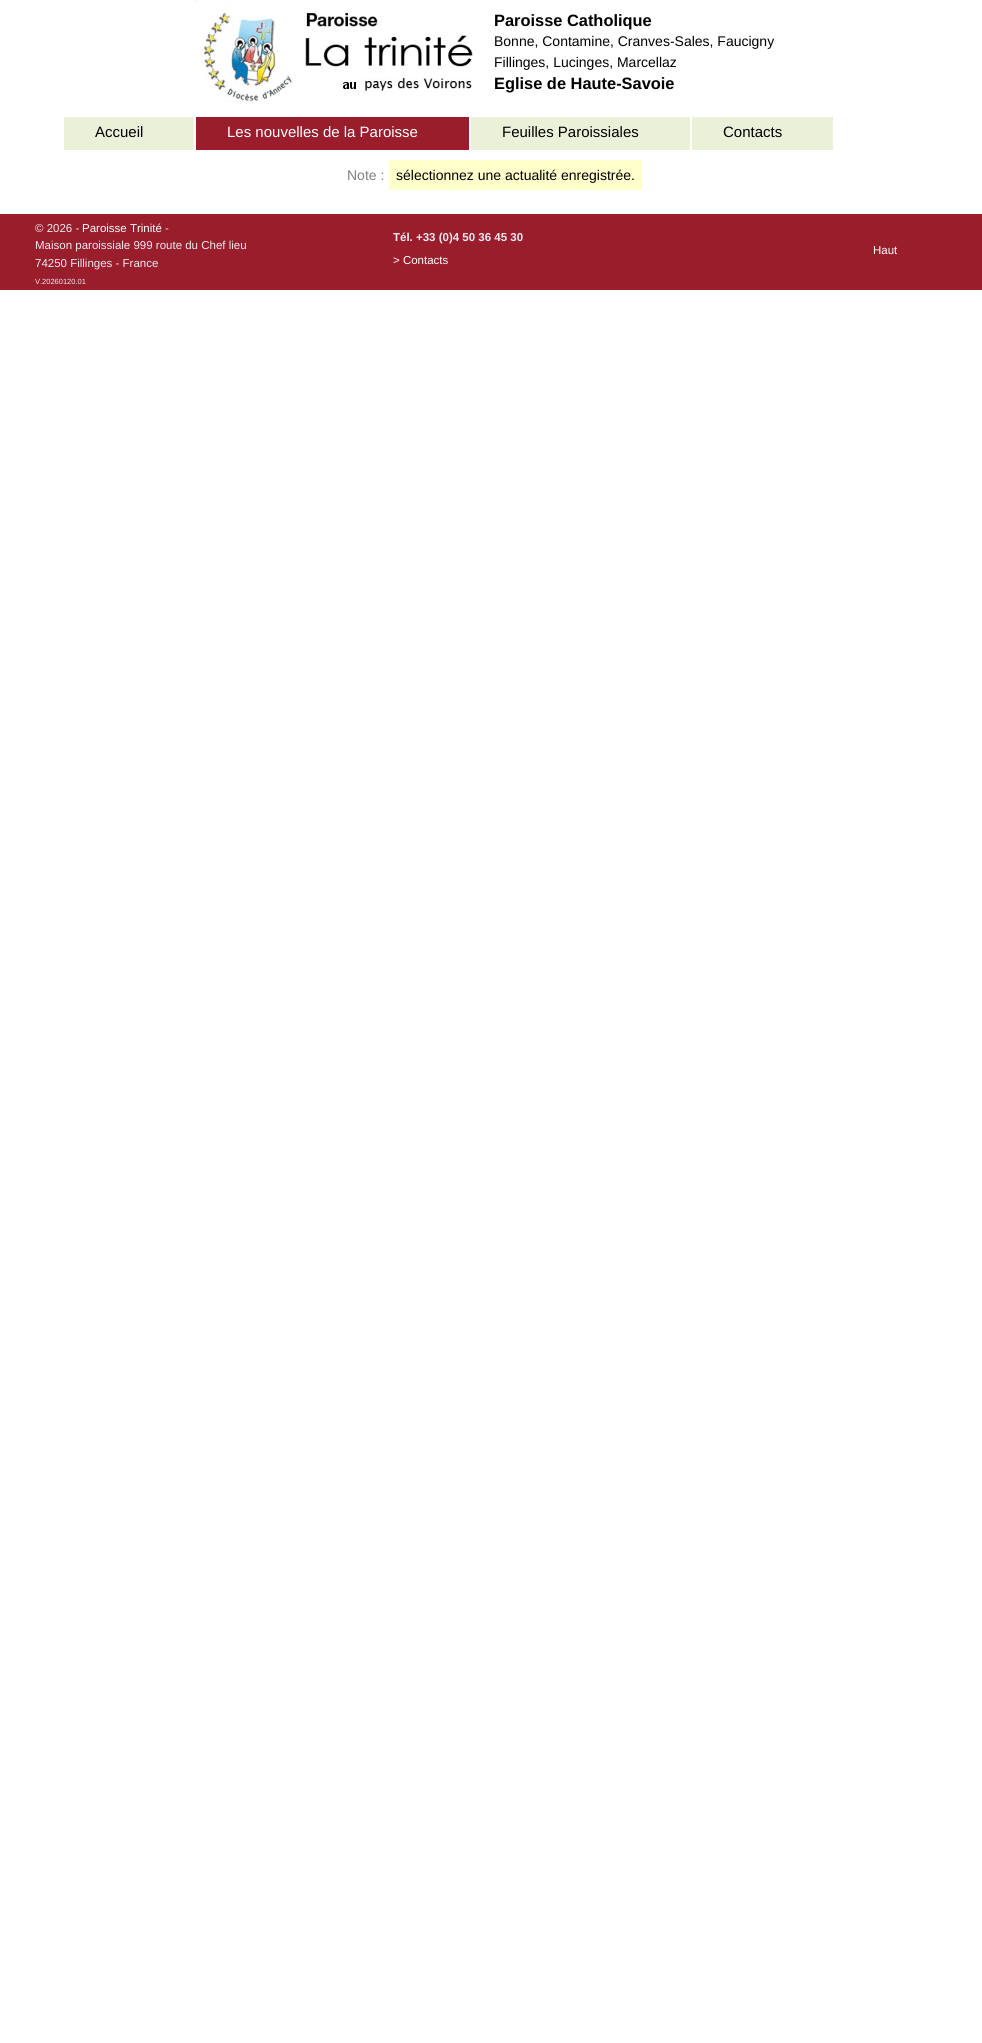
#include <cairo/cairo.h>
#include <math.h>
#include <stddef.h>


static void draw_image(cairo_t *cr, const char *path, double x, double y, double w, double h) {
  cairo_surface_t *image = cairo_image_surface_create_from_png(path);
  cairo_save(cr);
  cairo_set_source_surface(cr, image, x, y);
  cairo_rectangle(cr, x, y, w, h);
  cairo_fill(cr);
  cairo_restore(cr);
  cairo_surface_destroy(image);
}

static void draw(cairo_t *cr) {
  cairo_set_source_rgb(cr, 1, 1, 1);
  cairo_paint(cr);
  draw_image(cr, "images/1.png", 195, 0, 278, 102);
  cairo_set_source_rgb(cr, 235 / 255.0, 240 / 255.0, 216 / 255.0);
  cairo_rectangle(cr, 64, 117, 130, 33);
  cairo_fill(cr);
  cairo_set_source_rgb(cr, 154 / 255.0, 29 / 255.0, 44 / 255.0);
  cairo_rectangle(cr, 196, 117, 273, 33);
  cairo_fill(cr);
  cairo_set_source_rgb(cr, 235 / 255.0, 240 / 255.0, 216 / 255.0);
  cairo_rectangle(cr, 471, 117, 219, 33);
  cairo_fill(cr);
  cairo_rectangle(cr, 692, 117, 141, 33);
  cairo_fill(cr);
  cairo_set_source_rgb(cr, 254 / 255.0, 1, 203 / 255.0);
  cairo_rectangle(cr, 389, 160, 253, 30);
  cairo_fill(cr);
  cairo_set_source_rgb(cr, 154 / 255.0, 29 / 255.0, 44 / 255.0);
  cairo_rectangle(cr, 0, 214, 982, 76);
  cairo_fill(cr);
  cairo_select_font_face(cr, "Liberation Sans", CAIRO_FONT_SLANT_NORMAL, CAIRO_FONT_WEIGHT_BOLD);
  cairo_set_font_size(cr, 16.4);
  cairo_set_source_rgb(cr, 0, 0, 0);
  cairo_move_to(cr, 494, 26);
  cairo_show_text(cr, "Paroisse Catholique");
  cairo_select_font_face(cr, "Liberation Sans", CAIRO_FONT_SLANT_NORMAL, CAIRO_FONT_WEIGHT_NORMAL);
  cairo_set_font_size(cr, 14);
  cairo_move_to(cr, 494, 46);
  cairo_show_text(cr, "Bonne, Contamine, Cranves-Sales, Faucigny");
  cairo_move_to(cr, 494, 67);
  cairo_show_text(cr, "Fillinges, Lucinges, Marcellaz");
  cairo_select_font_face(cr, "Liberation Sans", CAIRO_FONT_SLANT_NORMAL, CAIRO_FONT_WEIGHT_BOLD);
  cairo_set_font_size(cr, 16.4);
  cairo_move_to(cr, 494, 89);
  cairo_show_text(cr, "Eglise de Haute-Savoie");
  cairo_select_font_face(cr, "Liberation Sans", CAIRO_FONT_SLANT_NORMAL, CAIRO_FONT_WEIGHT_NORMAL);
  cairo_set_font_size(cr, 15);
  cairo_move_to(cr, 95, 137);
  cairo_show_text(cr, "Accueil");
  cairo_set_source_rgb(cr, 1, 1, 1);
  cairo_move_to(cr, 227, 137);
  cairo_show_text(cr, "Les nouvelles de la Paroisse");
  cairo_set_source_rgb(cr, 0, 0, 0);
  cairo_move_to(cr, 502, 137);
  cairo_show_text(cr, "Feuilles Paroissiales");
  cairo_move_to(cr, 723, 137);
  cairo_show_text(cr, "Contacts");
  cairo_set_font_size(cr, 14);
  cairo_set_source_rgb(cr, 128 / 255.0, 128 / 255.0, 128 / 255.0);
  cairo_move_to(cr, 347, 180);
  cairo_show_text(cr, "Note :");
  cairo_set_source_rgb(cr, 0, 0, 0);
  cairo_move_to(cr, 396, 180);
  cairo_show_text(cr, "sélectionnez une actualité enregistrée.");
  cairo_set_font_size(cr, 11.5);
  cairo_set_source_rgb(cr, 235 / 255.0, 234 / 255.0, 240 / 255.0);
  cairo_move_to(cr, 35, 232);
  cairo_show_text(cr, "© 2026 -");
  cairo_set_source_rgb(cr, 1, 1, 1);
  cairo_move_to(cr, 82, 232);
  cairo_show_text(cr, "Paroisse Trinité");
  cairo_set_source_rgb(cr, 235 / 255.0, 234 / 255.0, 240 / 255.0);
  cairo_move_to(cr, 165, 232);
  cairo_show_text(cr, "-");
  cairo_move_to(cr, 35, 249);
  cairo_show_text(cr, "Maison paroissiale 999 route du Chef lieu");
  cairo_move_to(cr, 35, 267);
  cairo_show_text(cr, "74250 Fillinges - France");
  cairo_set_font_size(cr, 7.5);
  cairo_move_to(cr, 35, 284);
  cairo_show_text(cr, "V.20260120.01");
  cairo_select_font_face(cr, "Liberation Sans", CAIRO_FONT_SLANT_NORMAL, CAIRO_FONT_WEIGHT_BOLD);
  cairo_set_font_size(cr, 11.5);
  cairo_move_to(cr, 393, 241);
  cairo_show_text(cr, "Tél. +33 (0)4 50 36 45 30");
  cairo_select_font_face(cr, "Liberation Sans", CAIRO_FONT_SLANT_NORMAL, CAIRO_FONT_WEIGHT_NORMAL);
  cairo_set_source_rgb(cr, 1, 1, 1);
  cairo_move_to(cr, 393, 264);
  cairo_show_text(cr, "> Contacts");
  cairo_move_to(cr, 873, 254);
  cairo_show_text(cr, "Haut");
}

int main(void) {
  cairo_surface_t *surface = cairo_image_surface_create(CAIRO_FORMAT_RGB24, 982, 2043);
  cairo_t *cr = cairo_create(surface);
  cairo_font_options_t *options = cairo_font_options_create();
  cairo_font_options_set_hint_metrics(options, CAIRO_HINT_METRICS_OFF);
  cairo_font_options_set_hint_style(options, CAIRO_HINT_STYLE_NONE);
  cairo_set_font_options(cr, options);
  cairo_set_miter_limit(cr, 4);
  draw(cr);
  cairo_surface_write_to_png(surface, "out.png");
  cairo_font_options_destroy(options);
  cairo_destroy(cr);
  cairo_surface_destroy(surface);
  return 0;
}
